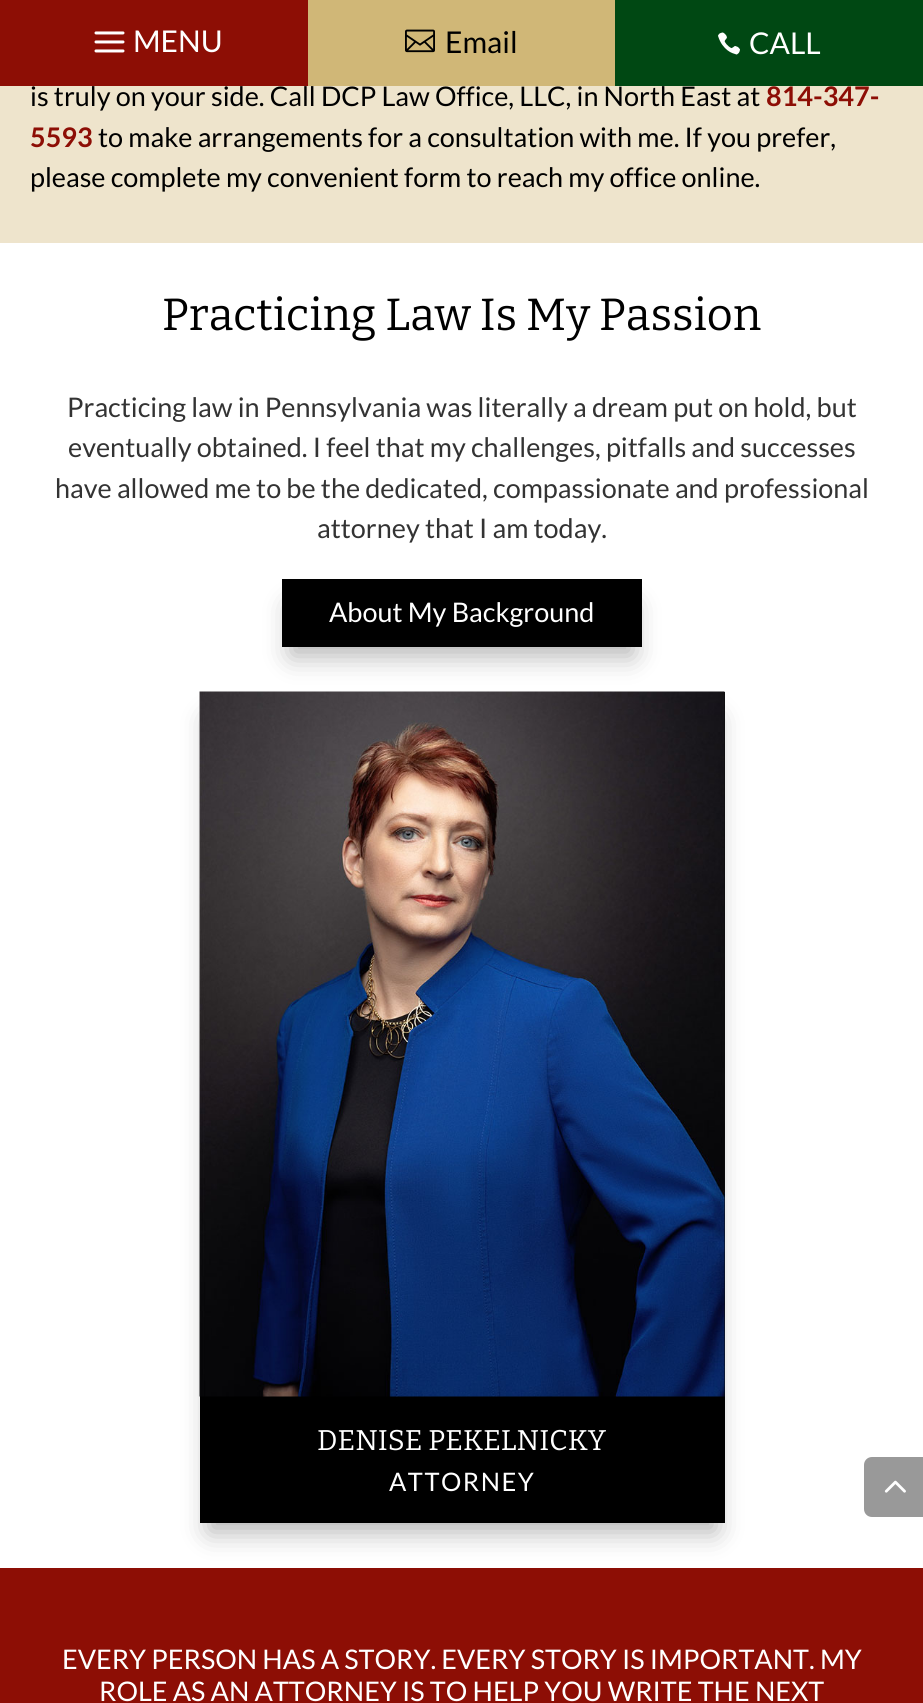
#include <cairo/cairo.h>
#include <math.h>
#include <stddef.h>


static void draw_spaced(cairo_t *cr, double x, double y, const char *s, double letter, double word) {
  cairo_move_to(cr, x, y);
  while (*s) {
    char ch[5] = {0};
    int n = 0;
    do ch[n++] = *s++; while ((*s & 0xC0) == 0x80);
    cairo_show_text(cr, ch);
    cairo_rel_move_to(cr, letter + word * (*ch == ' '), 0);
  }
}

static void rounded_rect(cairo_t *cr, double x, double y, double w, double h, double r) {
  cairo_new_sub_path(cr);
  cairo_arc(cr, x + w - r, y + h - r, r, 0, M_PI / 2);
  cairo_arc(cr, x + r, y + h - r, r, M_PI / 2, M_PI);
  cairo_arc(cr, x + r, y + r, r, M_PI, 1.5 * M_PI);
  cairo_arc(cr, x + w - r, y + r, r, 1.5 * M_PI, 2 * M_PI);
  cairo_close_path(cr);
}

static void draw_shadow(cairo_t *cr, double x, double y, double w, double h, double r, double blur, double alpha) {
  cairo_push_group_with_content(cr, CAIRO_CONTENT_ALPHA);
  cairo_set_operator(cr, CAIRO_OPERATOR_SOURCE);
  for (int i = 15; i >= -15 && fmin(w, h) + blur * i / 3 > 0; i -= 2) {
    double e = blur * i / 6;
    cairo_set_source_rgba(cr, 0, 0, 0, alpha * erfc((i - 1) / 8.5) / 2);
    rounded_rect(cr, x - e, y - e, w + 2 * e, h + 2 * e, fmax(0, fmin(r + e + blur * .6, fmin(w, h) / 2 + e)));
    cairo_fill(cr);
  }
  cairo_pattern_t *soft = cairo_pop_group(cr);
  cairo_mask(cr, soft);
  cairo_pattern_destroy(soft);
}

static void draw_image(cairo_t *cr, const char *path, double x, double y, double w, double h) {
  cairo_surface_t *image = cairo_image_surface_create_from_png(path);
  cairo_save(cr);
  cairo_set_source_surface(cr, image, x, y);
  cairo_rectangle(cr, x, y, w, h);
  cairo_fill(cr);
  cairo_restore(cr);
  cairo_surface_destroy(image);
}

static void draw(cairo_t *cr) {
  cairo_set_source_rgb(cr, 1, 1, 1);
  cairo_paint(cr);
  cairo_set_source_rgb(cr, 141 / 255.0, 14 / 255.0, 5 / 255.0);
  cairo_rectangle(cr, 0, 0, 308, 86);
  cairo_fill(cr);
  draw_image(cr, "images/1.png", 94, 31, 31, 22);
  cairo_set_source_rgb(cr, 208 / 255.0, 183 / 255.0, 119 / 255.0);
  cairo_rectangle(cr, 308, 0, 307, 86);
  cairo_fill(cr);
  draw_image(cr, "images/2.png", 405, 29, 30, 24);
  cairo_set_source_rgb(cr, 0, 72 / 255.0, 19 / 255.0);
  cairo_rectangle(cr, 615, 0, 308, 86);
  cairo_fill(cr);
  draw_image(cr, "images/3.png", 718, 32, 22, 23);
  cairo_set_source_rgb(cr, 238 / 255.0, 228 / 255.0, 204 / 255.0);
  cairo_rectangle(cr, 0, 86, 923, 157);
  cairo_fill(cr);
  cairo_set_source_rgb(cr, 0, 0, 0);
  draw_shadow(cr, 291, 606, 342, 50, 0, 13.5, 0.3);
  cairo_set_source_rgb(cr, 0, 0, 0);
  cairo_rectangle(cr, 282, 579, 360, 68);
  cairo_fill(cr);
  cairo_set_source_rgb(cr, 141 / 255.0, 14 / 255.0, 5 / 255.0);
  cairo_rectangle(cr, 0, 1568, 923, 135);
  cairo_fill(cr);
  cairo_set_source_rgb(cr, 0, 0, 0);
  draw_shadow(cr, 209, 719, 507, 813, 0, 13.5, 0.3);
  cairo_set_source_rgb(cr, 0, 0, 0);
  cairo_rectangle(cr, 200, 692, 525, 831);
  cairo_fill(cr);
  draw_image(cr, "images/4.png", 199, 691, 526, 706);
  cairo_set_source_rgb(cr, 153 / 255.0, 153 / 255.0, 153 / 255.0);
  cairo_new_path(cr);
  cairo_move_to(cr, 872, 1457);
  cairo_line_to(cr, 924, 1457);
  cairo_line_to(cr, 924, 1517);
  cairo_line_to(cr, 872, 1517);
  cairo_curve_to(cr, 867.5, 1517, 864, 1513.5, 864, 1509);
  cairo_line_to(cr, 864, 1465);
  cairo_curve_to(cr, 864, 1460.5, 867.5, 1457, 872, 1457);
  cairo_close_path(cr);
  cairo_fill(cr);
  draw_image(cr, "images/5.png", 884, 1480, 22, 13);
  cairo_select_font_face(cr, "Lato", CAIRO_FONT_SLANT_NORMAL, CAIRO_FONT_WEIGHT_NORMAL);
  cairo_set_font_size(cr, 30);
  cairo_set_source_rgb(cr, 1, 1, 1);
  cairo_move_to(cr, 133, 52);
  cairo_show_text(cr, "MENU");
  cairo_set_source_rgb(cr, 0, 0, 0);
  cairo_move_to(cr, 445, 53);
  cairo_show_text(cr, "Email");
  cairo_set_source_rgb(cr, 1, 1, 1);
  cairo_move_to(cr, 749, 54);
  cairo_show_text(cr, "CALL");
  cairo_set_font_size(cr, 27);
  cairo_set_source_rgb(cr, 0, 0, 0);
  cairo_move_to(cr, 30, 106);
  cairo_show_text(cr, "is truly on your side. Call DCP Law Office, LLC, in North East at");
  cairo_select_font_face(cr, "Lato", CAIRO_FONT_SLANT_NORMAL, CAIRO_FONT_WEIGHT_BOLD);
  cairo_set_source_rgb(cr, 141 / 255.0, 14 / 255.0, 5 / 255.0);
  cairo_move_to(cr, 766, 106);
  cairo_show_text(cr, "814-347-");
  cairo_move_to(cr, 30, 147);
  cairo_show_text(cr, "5593");
  cairo_select_font_face(cr, "Lato", CAIRO_FONT_SLANT_NORMAL, CAIRO_FONT_WEIGHT_NORMAL);
  cairo_set_source_rgb(cr, 0, 0, 0);
  cairo_move_to(cr, 98, 147);
  cairo_show_text(cr, "to make arrangements for a consultation with me. If you prefer,");
  cairo_move_to(cr, 30, 187);
  cairo_show_text(cr, "please complete my convenient form to reach my office online.");
  cairo_select_font_face(cr, "Bitter", CAIRO_FONT_SLANT_NORMAL, CAIRO_FONT_WEIGHT_NORMAL);
  cairo_set_font_size(cr, 45);
  cairo_move_to(cr, 162, 330);
  cairo_show_text(cr, "Practicing Law Is My Passion");
  cairo_select_font_face(cr, "Lato", CAIRO_FONT_SLANT_NORMAL, CAIRO_FONT_WEIGHT_NORMAL);
  cairo_set_font_size(cr, 27);
  cairo_set_source_rgb(cr, 51 / 255.0, 51 / 255.0, 51 / 255.0);
  cairo_move_to(cr, 67, 417);
  cairo_show_text(cr, "Practicing law in Pennsylvania was literally a dream put on hold, but");
  cairo_move_to(cr, 68, 457);
  cairo_show_text(cr, "eventually obtained. I feel that my challenges, pitfalls and successes");
  cairo_move_to(cr, 55, 498);
  cairo_show_text(cr, "have allowed me to be the dedicated, compassionate and professional");
  cairo_move_to(cr, 317, 538);
  cairo_show_text(cr, "attorney that I am today.");
  cairo_set_source_rgb(cr, 1, 1, 1);
  cairo_move_to(cr, 329, 622);
  cairo_show_text(cr, "About My Background");
  cairo_select_font_face(cr, "Bitter", CAIRO_FONT_SLANT_NORMAL, CAIRO_FONT_WEIGHT_NORMAL);
  cairo_set_font_size(cr, 28.5);
  cairo_move_to(cr, 317, 1450);
  cairo_show_text(cr, "DENISE PEKELNICKY");
  cairo_select_font_face(cr, "Lato", CAIRO_FONT_SLANT_NORMAL, CAIRO_FONT_WEIGHT_NORMAL);
  cairo_set_font_size(cr, 25.5);
  draw_spaced(cr, 389, 1491, "ATTORNEY", 1.5, 0);
  cairo_set_font_size(cr, 27);
  cairo_move_to(cr, 62, 1669);
  cairo_show_text(cr, "EVERY PERSON HAS A STORY. EVERY STORY IS IMPORTANT. MY");
  cairo_move_to(cr, 99, 1701);
  cairo_show_text(cr, "ROLE AS AN ATTORNEY IS TO HELP YOU WRITE THE NEXT");
}

int main(void) {
  cairo_surface_t *surface = cairo_image_surface_create(CAIRO_FORMAT_RGB24, 923, 1703);
  cairo_t *cr = cairo_create(surface);
  cairo_font_options_t *options = cairo_font_options_create();
  cairo_font_options_set_hint_metrics(options, CAIRO_HINT_METRICS_OFF);
  cairo_font_options_set_hint_style(options, CAIRO_HINT_STYLE_NONE);
  cairo_set_font_options(cr, options);
  cairo_set_miter_limit(cr, 4);
  draw(cr);
  cairo_surface_write_to_png(surface, "out.png");
  cairo_font_options_destroy(options);
  cairo_destroy(cr);
  cairo_surface_destroy(surface);
  return 0;
}
